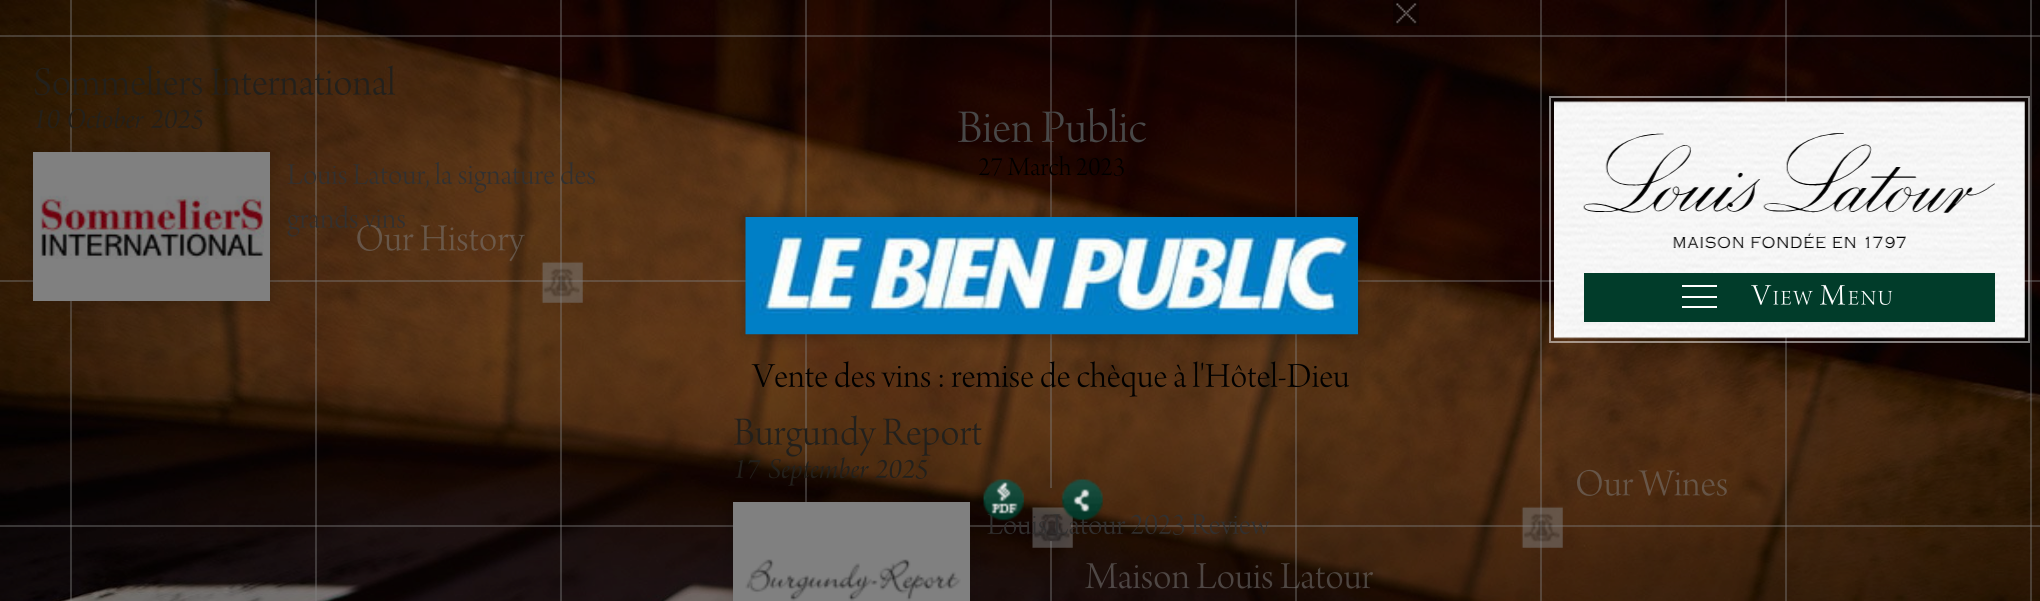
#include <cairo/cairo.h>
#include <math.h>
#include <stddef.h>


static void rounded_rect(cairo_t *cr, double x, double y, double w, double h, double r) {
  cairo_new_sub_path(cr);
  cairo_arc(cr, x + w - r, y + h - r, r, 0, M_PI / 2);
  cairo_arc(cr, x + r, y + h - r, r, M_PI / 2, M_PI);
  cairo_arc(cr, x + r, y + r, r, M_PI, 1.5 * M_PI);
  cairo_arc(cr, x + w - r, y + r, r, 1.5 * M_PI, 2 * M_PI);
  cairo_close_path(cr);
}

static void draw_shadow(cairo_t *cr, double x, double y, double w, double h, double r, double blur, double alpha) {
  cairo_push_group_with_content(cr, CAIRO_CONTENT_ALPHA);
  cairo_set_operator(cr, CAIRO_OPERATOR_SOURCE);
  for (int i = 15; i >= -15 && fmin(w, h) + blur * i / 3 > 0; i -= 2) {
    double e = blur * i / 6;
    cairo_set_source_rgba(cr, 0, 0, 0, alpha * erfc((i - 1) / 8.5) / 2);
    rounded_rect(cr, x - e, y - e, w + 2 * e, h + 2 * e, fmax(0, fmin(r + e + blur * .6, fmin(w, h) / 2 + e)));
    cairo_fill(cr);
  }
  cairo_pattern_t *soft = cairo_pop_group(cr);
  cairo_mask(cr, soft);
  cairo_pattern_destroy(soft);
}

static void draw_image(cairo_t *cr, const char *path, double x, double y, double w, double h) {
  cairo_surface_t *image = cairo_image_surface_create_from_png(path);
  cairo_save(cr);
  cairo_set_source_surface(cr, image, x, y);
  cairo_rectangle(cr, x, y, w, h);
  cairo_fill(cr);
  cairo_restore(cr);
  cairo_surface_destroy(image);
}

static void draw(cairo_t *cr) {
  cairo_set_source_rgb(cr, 1, 1, 1);
  cairo_paint(cr);
  draw_image(cr, "images/1.png", 0, 0, 2040, 601);
  cairo_set_source_rgba(cr, 128 / 255.0, 128 / 255.0, 128 / 255.0, 0.4);
  cairo_rectangle(cr, 70, 0, 2, 601);
  cairo_fill(cr);
  cairo_rectangle(cr, 315, 0, 2, 601);
  cairo_fill(cr);
  cairo_rectangle(cr, 560, 0, 2, 601);
  cairo_fill(cr);
  cairo_rectangle(cr, 805, 0, 2, 502);
  cairo_fill(cr);
  cairo_rectangle(cr, 1050, 0, 2, 488);
  cairo_fill(cr);
  cairo_rectangle(cr, 1050, 541, 2, 60);
  cairo_fill(cr);
  cairo_rectangle(cr, 1295, 0, 2, 601);
  cairo_fill(cr);
  cairo_rectangle(cr, 1540, 0, 2, 601);
  cairo_fill(cr);
  cairo_rectangle(cr, 1785, 0, 2, 601);
  cairo_fill(cr);
  cairo_rectangle(cr, 2030, 0, 2, 601);
  cairo_fill(cr);
  cairo_rectangle(cr, 0, 35, 2040, 2);
  cairo_fill(cr);
  cairo_rectangle(cr, 0, 280, 2040, 2);
  cairo_fill(cr);
  cairo_rectangle(cr, 0, 525, 1029, 2);
  cairo_fill(cr);
  cairo_rectangle(cr, 1071, 525, 969, 2);
  cairo_fill(cr);
  draw_image(cr, "images/2.png", 1393, 0, 26, 26);
  draw_image(cr, "images/3.png", 958, 108, 188, 35);
  draw_image(cr, "images/4.png", 979, 155, 145, 22);
  draw_image(cr, "images/6.png", 751, 361, 598, 36);
  cairo_set_source_rgb(cr, 0, 0, 0);
  draw_shadow(cr, 746, 217, 612, 117, 0, 9, 0.3);
  draw_image(cr, "images/5.png", 745, 217, 613, 118);
  draw_image(cr, "images/17.png", 735, 460, 26, 19);
  draw_image(cr, "images/18.png", 769, 457, 100, 29);
  draw_image(cr, "images/19.png", 875, 459, 52, 20);
  draw_shadow(cr, 733, 502, 237, 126, 0, 9, 0.2);
  draw_image(cr, "images/30.png", 1032, 507, 41, 41);
  draw_image(cr, "images/21.png", 987, 514, 283, 21);
  draw_image(cr, "images/7.png", 983, 479, 41, 42);
  draw_image(cr, "images/8.png", 1061, 479, 42, 42);
  draw_image(cr, "images/9.png", 34, 65, 362, 31);
  draw_image(cr, "images/10.png", 35, 109, 25, 19);
  draw_image(cr, "images/11.png", 68, 107, 76, 22);
  draw_image(cr, "images/12.png", 151, 109, 52, 20);
  draw_shadow(cr, 33, 152, 237, 149, 0, 9, 0.2);
  cairo_set_source_rgb(cr, 128 / 255.0, 128 / 255.0, 128 / 255.0);
  cairo_rectangle(cr, 33, 152, 237, 149);
  cairo_fill(cr);
  draw_image(cr, "images/13.png", 40, 195, 225, 64);
  draw_image(cr, "images/14.png", 287, 162, 308, 31);
  draw_image(cr, "images/29.png", 357, 224, 168, 38);
  draw_image(cr, "images/15.png", 287, 205, 118, 32);
  draw_image(cr, "images/16.png", 734, 415, 248, 42);
  cairo_rectangle(cr, 733, 502, 237, 99);
  cairo_fill(cr);
  draw_image(cr, "images/20.png", 745, 559, 216, 42);
  cairo_rectangle(cr, 1550, 97, 479, 245);
  cairo_set_source_rgba(cr, 1, 1, 1, 0.5);
  cairo_stroke(cr);
  draw_image(cr, "images/22.png", 1554, 101, 471, 238);
  draw_image(cr, "images/23.png", 1583, 133, 412, 116);
  cairo_set_source_rgb(cr, 1 / 255.0, 60 / 255.0, 42 / 255.0);
  cairo_rectangle(cr, 1584, 273, 411, 49);
  cairo_fill(cr);
  cairo_set_source_rgb(cr, 1, 1, 1);
  cairo_rectangle(cr, 1682, 296, 35, 2);
  cairo_fill(cr);
  cairo_rectangle(cr, 1682, 285, 35, 2);
  cairo_fill(cr);
  cairo_rectangle(cr, 1682, 306, 35, 2);
  cairo_fill(cr);
  draw_image(cr, "images/24.png", 1751, 285, 21, 20);
  draw_image(cr, "images/25.png", 1773, 290, 40, 15);
  draw_image(cr, "images/26.png", 1820, 285, 26, 20);
  draw_image(cr, "images/27.png", 1848, 290, 45, 15);
  draw_image(cr, "images/28.png", 541, 261, 42, 42);
  draw_image(cr, "images/31.png", 1085, 563, 288, 26);
  draw_image(cr, "images/32.png", 1521, 506, 42, 42);
  draw_image(cr, "images/33.png", 1577, 469, 150, 27);
}

int main(void) {
  cairo_surface_t *surface = cairo_image_surface_create(CAIRO_FORMAT_RGB24, 2040, 601);
  cairo_t *cr = cairo_create(surface);
  cairo_font_options_t *options = cairo_font_options_create();
  cairo_font_options_set_hint_metrics(options, CAIRO_HINT_METRICS_OFF);
  cairo_font_options_set_hint_style(options, CAIRO_HINT_STYLE_NONE);
  cairo_set_font_options(cr, options);
  cairo_set_miter_limit(cr, 4);
  draw(cr);
  cairo_surface_write_to_png(surface, "out.png");
  cairo_font_options_destroy(options);
  cairo_destroy(cr);
  cairo_surface_destroy(surface);
  return 0;
}
